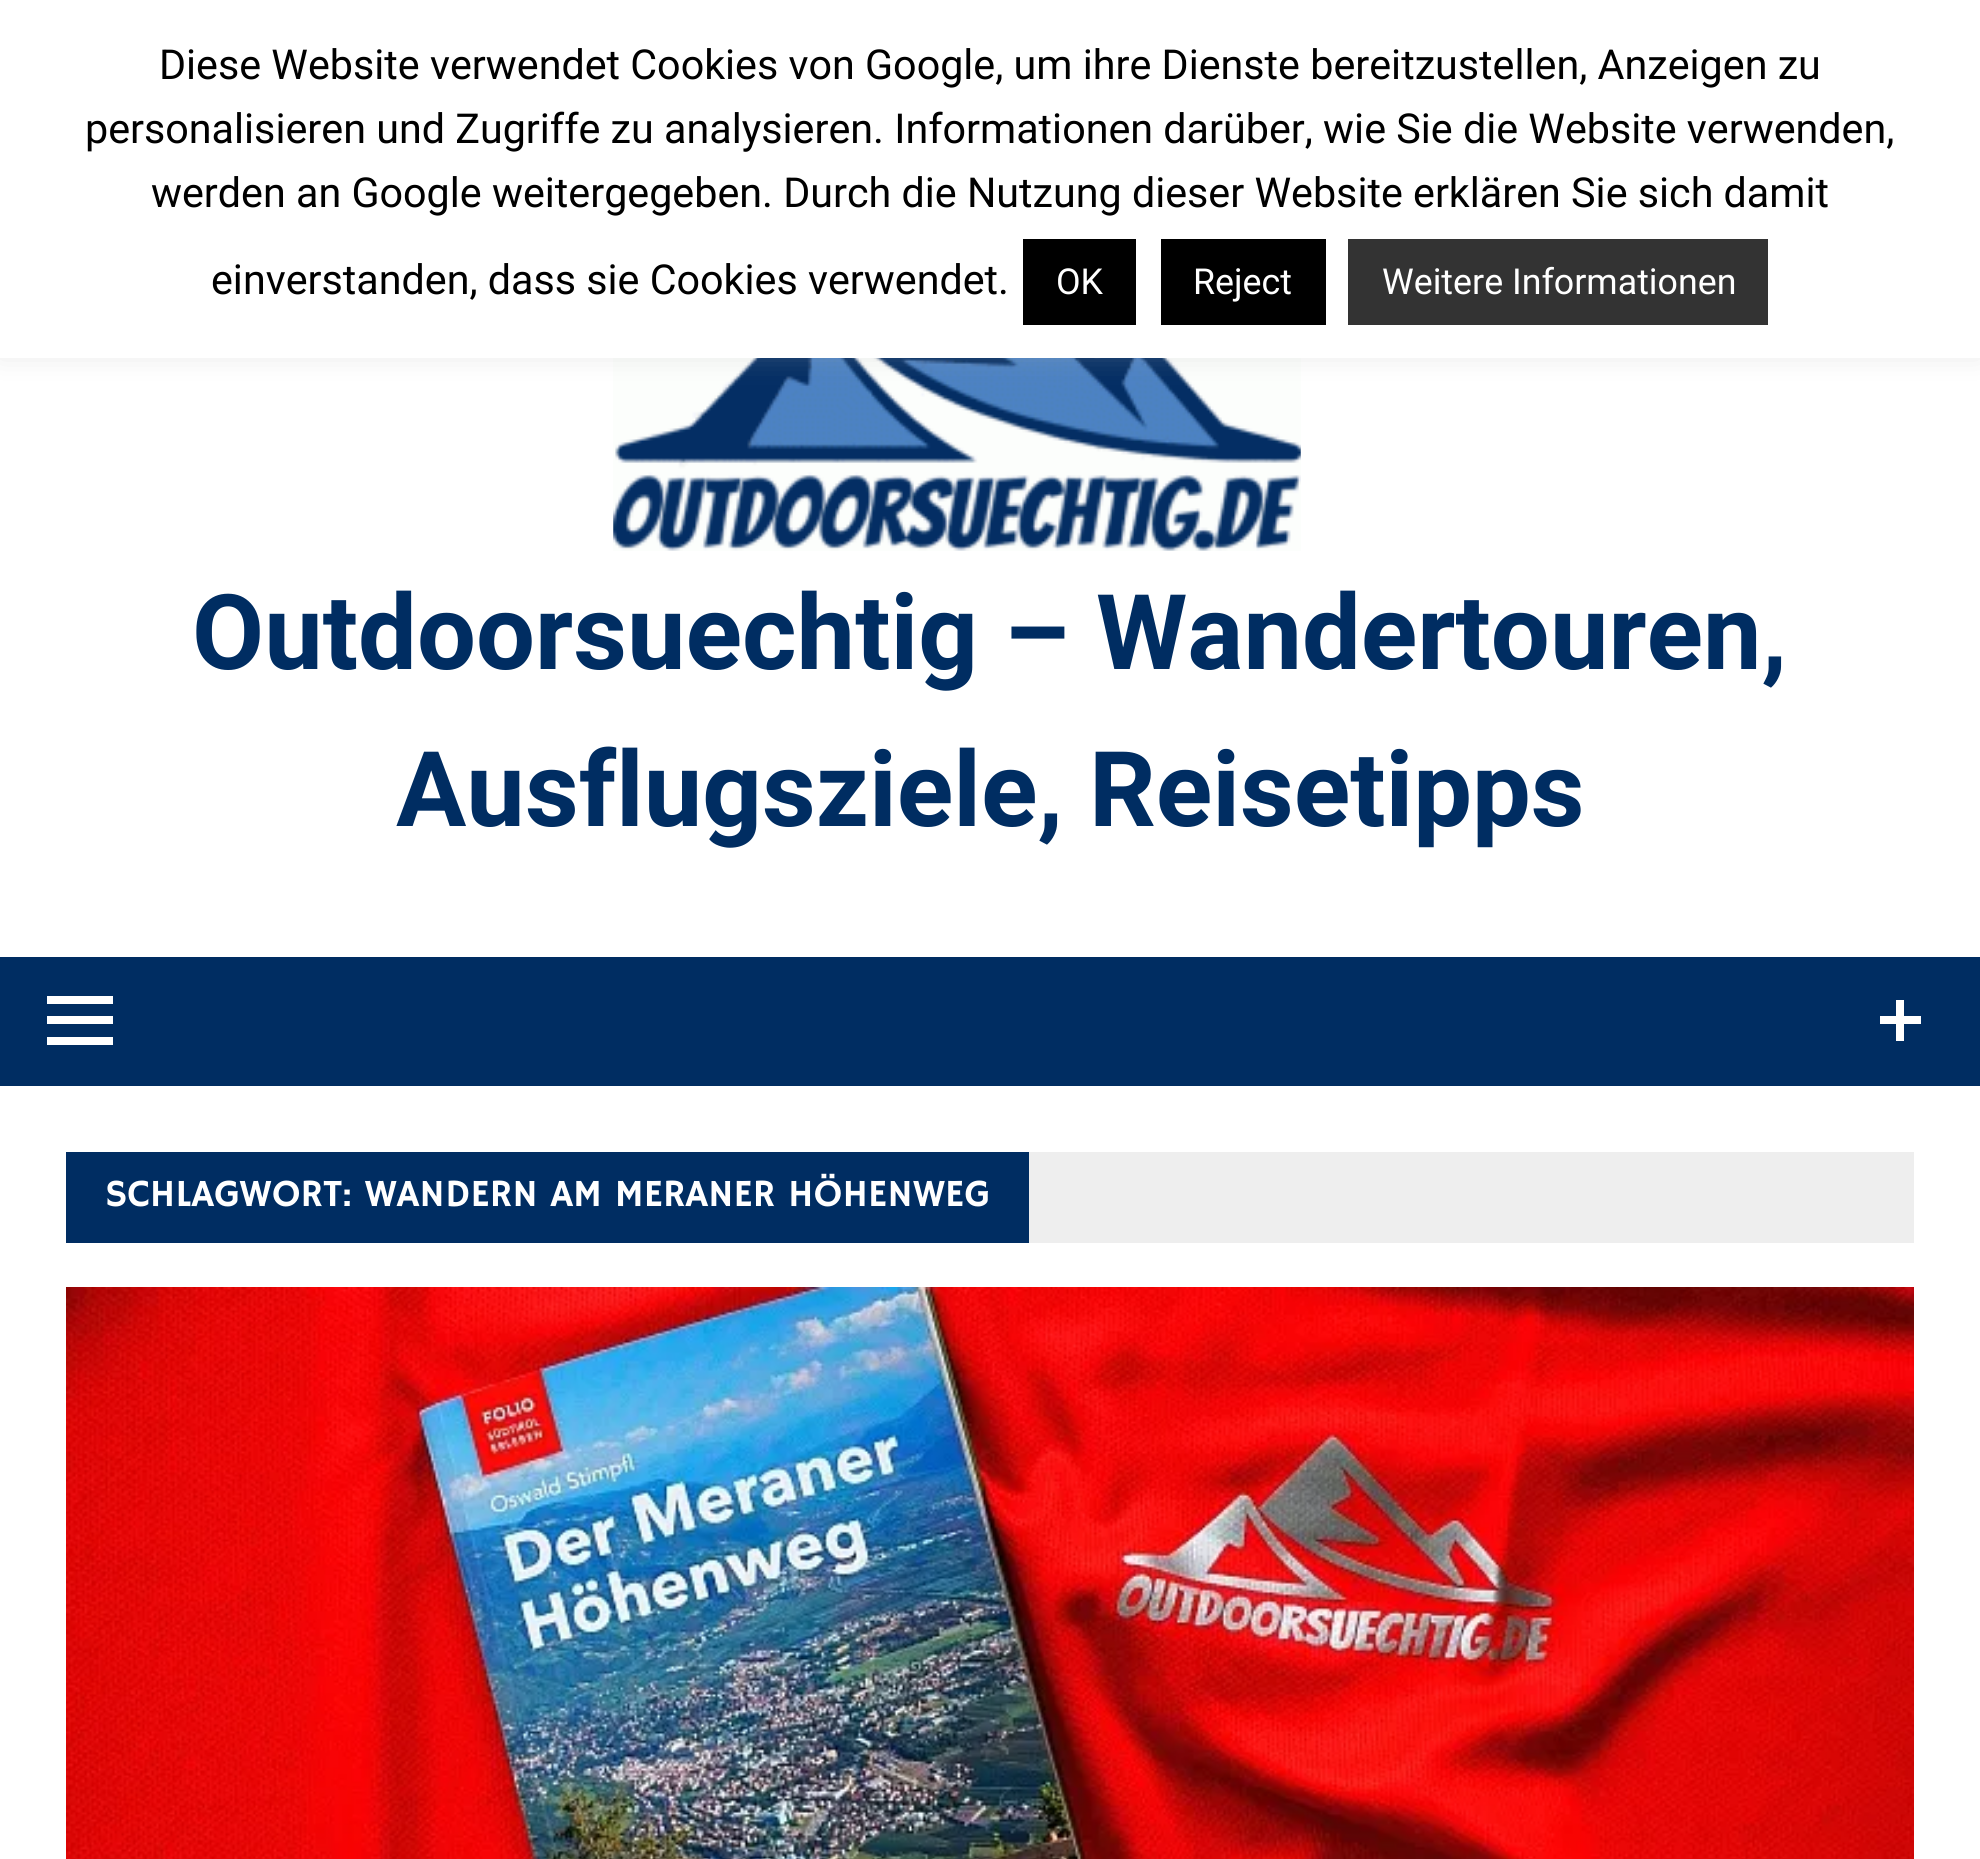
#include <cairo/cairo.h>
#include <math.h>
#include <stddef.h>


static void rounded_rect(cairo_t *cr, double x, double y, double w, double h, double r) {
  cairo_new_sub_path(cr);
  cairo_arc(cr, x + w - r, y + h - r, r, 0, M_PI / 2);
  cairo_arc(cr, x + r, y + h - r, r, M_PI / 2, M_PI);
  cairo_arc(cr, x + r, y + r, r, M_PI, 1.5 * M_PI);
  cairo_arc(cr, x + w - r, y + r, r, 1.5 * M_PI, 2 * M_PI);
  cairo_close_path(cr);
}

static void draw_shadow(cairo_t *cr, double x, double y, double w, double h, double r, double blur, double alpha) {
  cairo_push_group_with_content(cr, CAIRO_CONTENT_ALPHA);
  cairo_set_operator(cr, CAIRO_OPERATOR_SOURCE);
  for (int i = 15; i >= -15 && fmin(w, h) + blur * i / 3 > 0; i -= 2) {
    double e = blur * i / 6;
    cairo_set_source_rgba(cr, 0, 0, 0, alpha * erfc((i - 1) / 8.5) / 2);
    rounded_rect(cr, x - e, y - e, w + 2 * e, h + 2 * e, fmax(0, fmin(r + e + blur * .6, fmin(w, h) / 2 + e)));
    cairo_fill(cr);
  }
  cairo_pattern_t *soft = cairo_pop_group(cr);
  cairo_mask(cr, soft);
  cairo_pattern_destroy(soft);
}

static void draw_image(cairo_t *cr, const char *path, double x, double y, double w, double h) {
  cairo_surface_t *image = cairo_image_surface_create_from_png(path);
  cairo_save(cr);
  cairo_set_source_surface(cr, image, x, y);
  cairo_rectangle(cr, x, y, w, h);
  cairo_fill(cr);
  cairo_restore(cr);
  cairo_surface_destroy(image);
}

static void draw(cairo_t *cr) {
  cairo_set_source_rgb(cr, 1, 1, 1);
  cairo_paint(cr);
  draw_image(cr, "images/1.png", 613, 358, 688, 193);
  cairo_set_source_rgb(cr, 172 / 255.0, 171 / 255.0, 171 / 255.0);
  draw_shadow(cr, 0, -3, 1980, 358, 0, 14, 0.3);
  cairo_set_source_rgb(cr, 1, 1, 1);
  cairo_rectangle(cr, 0, 0, 1980, 358);
  cairo_fill(cr);
  cairo_set_source_rgb(cr, 0, 0, 0);
  cairo_rectangle(cr, 1023, 239, 113, 86);
  cairo_fill(cr);
  cairo_rectangle(cr, 1161, 239, 165, 86);
  cairo_fill(cr);
  cairo_set_source_rgb(cr, 51 / 255.0, 51 / 255.0, 51 / 255.0);
  cairo_rectangle(cr, 1348, 239, 420, 86);
  cairo_fill(cr);
  cairo_set_source_rgb(cr, 0, 45 / 255.0, 98 / 255.0);
  cairo_rectangle(cr, 0, 957, 1980, 129);
  cairo_fill(cr);
  cairo_set_source_rgb(cr, 1, 1, 1);
  cairo_new_path(cr);
  cairo_move_to(cr, 1921, 1016);
  cairo_line_to(cr, 1921, 1024);
  cairo_line_to(cr, 1904, 1024);
  cairo_line_to(cr, 1904, 1041);
  cairo_line_to(cr, 1896, 1041);
  cairo_line_to(cr, 1896, 1024);
  cairo_line_to(cr, 1880, 1024);
  cairo_line_to(cr, 1880, 1016);
  cairo_line_to(cr, 1896, 1016);
  cairo_line_to(cr, 1896, 1000);
  cairo_line_to(cr, 1904, 1000);
  cairo_line_to(cr, 1904, 1016);
  cairo_close_path(cr);
  cairo_fill(cr);
  cairo_new_path(cr);
  cairo_move_to(cr, 47, 1045);
  cairo_line_to(cr, 47, 1037);
  cairo_line_to(cr, 113, 1037);
  cairo_line_to(cr, 113, 1045);
  cairo_close_path(cr);
  cairo_move_to(cr, 47, 996);
  cairo_line_to(cr, 113, 996);
  cairo_line_to(cr, 113, 1004);
  cairo_line_to(cr, 47, 1004);
  cairo_close_path(cr);
  cairo_move_to(cr, 47, 1024);
  cairo_line_to(cr, 47, 1016);
  cairo_line_to(cr, 113, 1016);
  cairo_line_to(cr, 113, 1024);
  cairo_close_path(cr);
  cairo_fill(cr);
  cairo_set_source_rgb(cr, 238 / 255.0, 238 / 255.0, 238 / 255.0);
  cairo_rectangle(cr, 1029, 1152, 885, 91);
  cairo_fill(cr);
  cairo_set_source_rgb(cr, 0, 45 / 255.0, 98 / 255.0);
  cairo_rectangle(cr, 66, 1152, 963, 91);
  cairo_fill(cr);
  draw_image(cr, "images/2.png", 66, 1287, 1848, 572);
  cairo_select_font_face(cr, "Roboto", CAIRO_FONT_SLANT_NORMAL, CAIRO_FONT_WEIGHT_NORMAL);
  cairo_set_font_size(cr, 41.25);
  cairo_set_source_rgb(cr, 0, 0, 0);
  cairo_move_to(cr, 159, 79);
  cairo_show_text(cr, "Diese Website verwendet Cookies von Google, um ihre Dienste bereitzustellen, Anzeigen zu");
  cairo_move_to(cr, 85, 143);
  cairo_show_text(cr, "personalisieren und Zugriffe zu analysieren. Informationen darüber, wie Sie die Website verwenden,");
  cairo_move_to(cr, 151, 207);
  cairo_show_text(cr, "werden an Google weitergegeben. Durch die Nutzung dieser Website erklären Sie sich damit");
  cairo_move_to(cr, 211, 294);
  cairo_show_text(cr, "einverstanden, dass sie Cookies verwendet.");
  cairo_set_font_size(cr, 35.75);
  cairo_set_source_rgb(cr, 1, 1, 1);
  cairo_move_to(cr, 1056, 294);
  cairo_show_text(cr, "OK");
  cairo_move_to(cr, 1193, 294);
  cairo_show_text(cr, "Reject");
  cairo_move_to(cr, 1382, 294);
  cairo_show_text(cr, "Weitere Informationen");
  cairo_select_font_face(cr, "Roboto", CAIRO_FONT_SLANT_NORMAL, CAIRO_FONT_WEIGHT_BOLD);
  cairo_set_font_size(cr, 104.5);
  cairo_set_source_rgb(cr, 0, 45 / 255.0, 98 / 255.0);
  cairo_move_to(cr, 192, 669);
  cairo_show_text(cr, "Outdoorsuechtig – Wandertouren,");
  cairo_move_to(cr, 396, 826);
  cairo_show_text(cr, "Ausflugsziele, Reisetipps");
  cairo_select_font_face(cr, "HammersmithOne", CAIRO_FONT_SLANT_NORMAL, CAIRO_FONT_WEIGHT_NORMAL);
  cairo_set_font_size(cr, 38.5);
  cairo_set_source_rgb(cr, 1, 1, 1);
  cairo_move_to(cr, 105, 1206);
  cairo_show_text(cr, "SCHLAGWORT: WANDERN AM MERANER HÖHENWEG");
}

int main(void) {
  cairo_surface_t *surface = cairo_image_surface_create(CAIRO_FORMAT_RGB24, 1980, 1859);
  cairo_t *cr = cairo_create(surface);
  cairo_font_options_t *options = cairo_font_options_create();
  cairo_font_options_set_hint_metrics(options, CAIRO_HINT_METRICS_OFF);
  cairo_font_options_set_hint_style(options, CAIRO_HINT_STYLE_NONE);
  cairo_set_font_options(cr, options);
  cairo_set_miter_limit(cr, 4);
  draw(cr);
  cairo_surface_write_to_png(surface, "out.png");
  cairo_font_options_destroy(options);
  cairo_destroy(cr);
  cairo_surface_destroy(surface);
  return 0;
}
